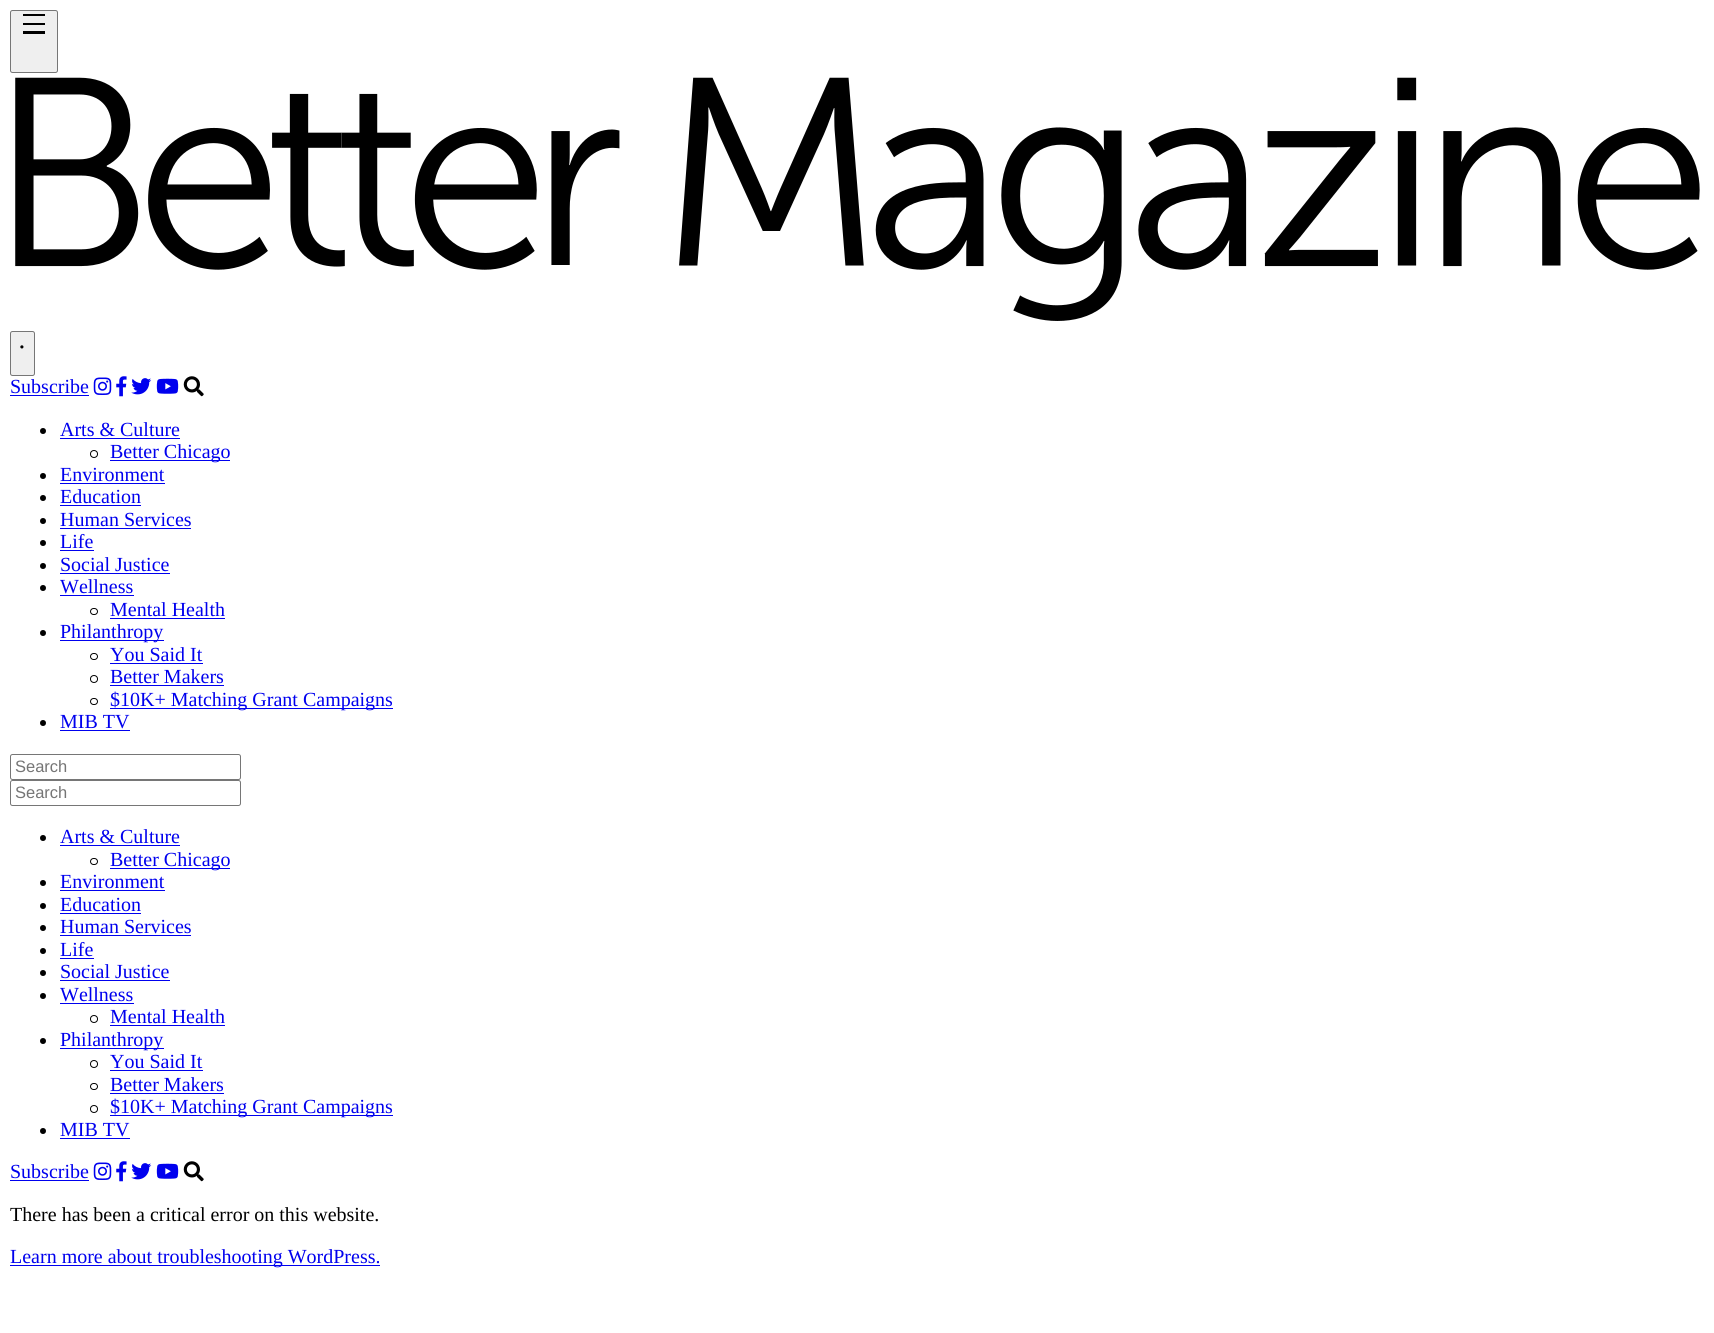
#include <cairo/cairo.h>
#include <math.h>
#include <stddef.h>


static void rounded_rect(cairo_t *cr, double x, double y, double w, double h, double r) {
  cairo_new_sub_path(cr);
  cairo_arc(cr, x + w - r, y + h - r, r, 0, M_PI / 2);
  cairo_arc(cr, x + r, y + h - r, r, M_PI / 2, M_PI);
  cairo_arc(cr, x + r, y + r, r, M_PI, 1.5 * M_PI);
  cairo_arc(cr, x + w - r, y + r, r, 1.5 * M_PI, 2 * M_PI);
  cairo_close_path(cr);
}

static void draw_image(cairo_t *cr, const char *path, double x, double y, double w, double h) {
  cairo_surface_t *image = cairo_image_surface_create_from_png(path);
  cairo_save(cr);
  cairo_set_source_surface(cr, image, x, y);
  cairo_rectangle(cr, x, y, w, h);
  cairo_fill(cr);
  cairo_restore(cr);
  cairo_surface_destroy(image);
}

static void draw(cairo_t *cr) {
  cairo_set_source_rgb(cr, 1, 1, 1);
  cairo_paint(cr);
  cairo_set_source_rgb(cr, 239 / 255.0, 239 / 255.0, 239 / 255.0);
  rounded_rect(cr, 10.5, 10.5, 47, 62, 2);
  cairo_fill_preserve(cr);
  cairo_set_source_rgb(cr, 118 / 255.0, 118 / 255.0, 118 / 255.0);
  cairo_set_line_width(cr, 1);
  cairo_stroke(cr);
  cairo_set_source_rgb(cr, 0, 0, 0);
  cairo_rectangle(cr, 23, 14, 22, 2);
  cairo_fill(cr);
  cairo_rectangle(cr, 23, 23, 22, 2);
  cairo_fill(cr);
  cairo_rectangle(cr, 23, 31, 22, 3);
  cairo_fill(cr);
  draw_image(cr, "images/1.png", 15, 77, 1685, 244);
  cairo_set_source_rgb(cr, 239 / 255.0, 239 / 255.0, 239 / 255.0);
  rounded_rect(cr, 10.5, 331.5, 24, 44, 2);
  cairo_fill_preserve(cr);
  cairo_set_source_rgb(cr, 118 / 255.0, 118 / 255.0, 118 / 255.0);
  cairo_stroke(cr);
  cairo_set_source_rgb(cr, 0, 0, 0);
  cairo_arc(cr, 21.9, 346.9, 1.6, 0, 2 * M_PI);
  cairo_fill(cr);
  cairo_set_source_rgb(cr, 0, 0, 238 / 255.0);
  cairo_rectangle(cr, 10, 395, 79, 1);
  cairo_fill(cr);
  draw_image(cr, "images/2.png", 93, 377, 19, 18);
  draw_image(cr, "images/3.png", 116, 376, 11, 21);
  draw_image(cr, "images/4.png", 131, 378, 21, 17);
  draw_image(cr, "images/5.png", 156, 378, 23, 16);
  draw_image(cr, "images/6.png", 183, 376, 21, 21);
  cairo_set_source_rgb(cr, 0, 0, 0);
  cairo_arc(cr, 43, 431, 3, 0, 2 * M_PI);
  cairo_fill(cr);
  cairo_set_source_rgb(cr, 0, 0, 238 / 255.0);
  cairo_rectangle(cr, 60, 438, 120, 1);
  cairo_fill(cr);
  cairo_arc(cr, 94, 454, 3.5, 0, 2 * M_PI);
  cairo_set_source_rgb(cr, 0, 0, 0);
  cairo_stroke(cr);
  cairo_set_source_rgb(cr, 0, 0, 238 / 255.0);
  cairo_rectangle(cr, 110, 460, 120, 1);
  cairo_fill(cr);
  cairo_set_source_rgb(cr, 0, 0, 0);
  cairo_arc(cr, 43, 476, 3, 0, 2 * M_PI);
  cairo_fill(cr);
  cairo_set_source_rgb(cr, 0, 0, 238 / 255.0);
  cairo_rectangle(cr, 60, 483, 105, 1);
  cairo_fill(cr);
  cairo_set_source_rgb(cr, 0, 0, 0);
  cairo_arc(cr, 43, 498, 3, 0, 2 * M_PI);
  cairo_fill(cr);
  cairo_set_source_rgb(cr, 0, 0, 238 / 255.0);
  cairo_rectangle(cr, 60, 505, 81, 1);
  cairo_fill(cr);
  cairo_set_source_rgb(cr, 0, 0, 0);
  cairo_arc(cr, 43, 521, 3, 0, 2 * M_PI);
  cairo_fill(cr);
  cairo_set_source_rgb(cr, 0, 0, 238 / 255.0);
  cairo_rectangle(cr, 60, 528, 131, 1);
  cairo_fill(cr);
  cairo_set_source_rgb(cr, 0, 0, 0);
  cairo_arc(cr, 43, 543, 3, 0, 2 * M_PI);
  cairo_fill(cr);
  cairo_set_source_rgb(cr, 0, 0, 238 / 255.0);
  cairo_rectangle(cr, 60, 550, 34, 1);
  cairo_fill(cr);
  cairo_set_source_rgb(cr, 0, 0, 0);
  cairo_arc(cr, 43, 566, 3, 0, 2 * M_PI);
  cairo_fill(cr);
  cairo_set_source_rgb(cr, 0, 0, 238 / 255.0);
  cairo_rectangle(cr, 60, 573, 110, 1);
  cairo_fill(cr);
  cairo_set_source_rgb(cr, 0, 0, 0);
  cairo_arc(cr, 43, 588, 3, 0, 2 * M_PI);
  cairo_fill(cr);
  cairo_set_source_rgb(cr, 0, 0, 238 / 255.0);
  cairo_rectangle(cr, 60, 595, 74, 1);
  cairo_fill(cr);
  rounded_rect(cr, 90.5, 608.5, 7, 6, 3);
  cairo_set_source_rgb(cr, 0, 0, 0);
  cairo_stroke(cr);
  cairo_set_source_rgb(cr, 0, 0, 238 / 255.0);
  cairo_rectangle(cr, 110, 618, 115, 1);
  cairo_fill(cr);
  cairo_set_source_rgb(cr, 0, 0, 0);
  cairo_arc(cr, 43, 633, 3, 0, 2 * M_PI);
  cairo_fill(cr);
  cairo_set_source_rgb(cr, 0, 0, 238 / 255.0);
  cairo_rectangle(cr, 60, 640, 104, 1);
  cairo_fill(cr);
  rounded_rect(cr, 90.5, 653.5, 7, 6, 3);
  cairo_set_source_rgb(cr, 0, 0, 0);
  cairo_stroke(cr);
  cairo_set_source_rgb(cr, 0, 0, 238 / 255.0);
  cairo_rectangle(cr, 110, 663, 93, 1);
  cairo_fill(cr);
  cairo_arc(cr, 94, 679, 3.5, 0, 2 * M_PI);
  cairo_set_source_rgb(cr, 0, 0, 0);
  cairo_stroke(cr);
  cairo_set_source_rgb(cr, 0, 0, 238 / 255.0);
  cairo_rectangle(cr, 110, 685, 114, 1);
  cairo_fill(cr);
  rounded_rect(cr, 90.5, 698.5, 7, 6, 3);
  cairo_set_source_rgb(cr, 0, 0, 0);
  cairo_stroke(cr);
  cairo_set_source_rgb(cr, 0, 0, 238 / 255.0);
  cairo_rectangle(cr, 110, 708, 283, 1);
  cairo_fill(cr);
  cairo_set_source_rgb(cr, 0, 0, 0);
  cairo_arc(cr, 43, 723, 3, 0, 2 * M_PI);
  cairo_fill(cr);
  cairo_set_source_rgb(cr, 0, 0, 238 / 255.0);
  cairo_rectangle(cr, 60, 730, 70, 1);
  cairo_fill(cr);
  rounded_rect(cr, 10.5, 754.5, 230, 25, 2);
  cairo_set_source_rgb(cr, 118 / 255.0, 118 / 255.0, 118 / 255.0);
  cairo_stroke(cr);
  rounded_rect(cr, 10.5, 780.5, 230, 25, 2);
  cairo_stroke(cr);
  cairo_set_source_rgb(cr, 0, 0, 0);
  cairo_arc(cr, 43, 838, 3, 0, 2 * M_PI);
  cairo_fill(cr);
  cairo_set_source_rgb(cr, 0, 0, 238 / 255.0);
  cairo_rectangle(cr, 60, 845, 120, 1);
  cairo_fill(cr);
  rounded_rect(cr, 90.5, 858.5, 7, 6, 3);
  cairo_set_source_rgb(cr, 0, 0, 0);
  cairo_stroke(cr);
  cairo_set_source_rgb(cr, 0, 0, 238 / 255.0);
  cairo_rectangle(cr, 110, 868, 120, 1);
  cairo_fill(cr);
  cairo_set_source_rgb(cr, 0, 0, 0);
  cairo_arc(cr, 43, 883, 3, 0, 2 * M_PI);
  cairo_fill(cr);
  cairo_set_source_rgb(cr, 0, 0, 238 / 255.0);
  cairo_rectangle(cr, 60, 890, 105, 1);
  cairo_fill(cr);
  cairo_set_source_rgb(cr, 0, 0, 0);
  cairo_arc(cr, 43, 906, 3, 0, 2 * M_PI);
  cairo_fill(cr);
  cairo_set_source_rgb(cr, 0, 0, 238 / 255.0);
  cairo_rectangle(cr, 60, 913, 81, 1);
  cairo_fill(cr);
  cairo_set_source_rgb(cr, 0, 0, 0);
  cairo_arc(cr, 43, 928, 3, 0, 2 * M_PI);
  cairo_fill(cr);
  cairo_set_source_rgb(cr, 0, 0, 238 / 255.0);
  cairo_rectangle(cr, 60, 935, 131, 1);
  cairo_fill(cr);
  cairo_set_source_rgb(cr, 0, 0, 0);
  cairo_arc(cr, 43, 951, 3, 0, 2 * M_PI);
  cairo_fill(cr);
  cairo_set_source_rgb(cr, 0, 0, 238 / 255.0);
  cairo_rectangle(cr, 60, 958, 34, 1);
  cairo_fill(cr);
  cairo_set_source_rgb(cr, 0, 0, 0);
  cairo_arc(cr, 43, 973, 3, 0, 2 * M_PI);
  cairo_fill(cr);
  cairo_set_source_rgb(cr, 0, 0, 238 / 255.0);
  cairo_rectangle(cr, 60, 980, 110, 1);
  cairo_fill(cr);
  cairo_set_source_rgb(cr, 0, 0, 0);
  cairo_arc(cr, 43, 996, 3, 0, 2 * M_PI);
  cairo_fill(cr);
  cairo_set_source_rgb(cr, 0, 0, 238 / 255.0);
  cairo_rectangle(cr, 60, 1003, 74, 1);
  cairo_fill(cr);
  cairo_arc(cr, 94, 1019, 3.5, 0, 2 * M_PI);
  cairo_set_source_rgb(cr, 0, 0, 0);
  cairo_stroke(cr);
  cairo_set_source_rgb(cr, 0, 0, 238 / 255.0);
  cairo_rectangle(cr, 110, 1025, 115, 1);
  cairo_fill(cr);
  cairo_set_source_rgb(cr, 0, 0, 0);
  cairo_arc(cr, 43, 1041, 3, 0, 2 * M_PI);
  cairo_fill(cr);
  cairo_set_source_rgb(cr, 0, 0, 238 / 255.0);
  cairo_rectangle(cr, 60, 1048, 104, 1);
  cairo_fill(cr);
  cairo_arc(cr, 94, 1064, 3.5, 0, 2 * M_PI);
  cairo_set_source_rgb(cr, 0, 0, 0);
  cairo_stroke(cr);
  cairo_set_source_rgb(cr, 0, 0, 238 / 255.0);
  cairo_rectangle(cr, 110, 1070, 93, 1);
  cairo_fill(cr);
  rounded_rect(cr, 90.5, 1083.5, 7, 6, 3);
  cairo_set_source_rgb(cr, 0, 0, 0);
  cairo_stroke(cr);
  cairo_set_source_rgb(cr, 0, 0, 238 / 255.0);
  cairo_rectangle(cr, 110, 1093, 114, 1);
  cairo_fill(cr);
  cairo_arc(cr, 94, 1109, 3.5, 0, 2 * M_PI);
  cairo_set_source_rgb(cr, 0, 0, 0);
  cairo_stroke(cr);
  cairo_set_source_rgb(cr, 0, 0, 238 / 255.0);
  cairo_rectangle(cr, 110, 1115, 283, 1);
  cairo_fill(cr);
  cairo_set_source_rgb(cr, 0, 0, 0);
  cairo_arc(cr, 43, 1131, 3, 0, 2 * M_PI);
  cairo_fill(cr);
  cairo_set_source_rgb(cr, 0, 0, 238 / 255.0);
  cairo_rectangle(cr, 60, 1138, 70, 1);
  cairo_fill(cr);
  cairo_rectangle(cr, 10, 1180, 79, 1);
  cairo_fill(cr);
  draw_image(cr, "images/2.png", 93, 1162, 19, 18);
  draw_image(cr, "images/3.png", 116, 1161, 11, 21);
  draw_image(cr, "images/4.png", 131, 1163, 21, 17);
  draw_image(cr, "images/5.png", 156, 1163, 23, 16);
  draw_image(cr, "images/6.png", 183, 1161, 21, 21);
  cairo_rectangle(cr, 10, 1265, 370, 1);
  cairo_fill(cr);
  cairo_select_font_face(cr, "Liberation Serif", CAIRO_FONT_SLANT_NORMAL, CAIRO_FONT_WEIGHT_NORMAL);
  cairo_set_font_size(cr, 20);
  cairo_move_to(cr, 10, 393);
  cairo_show_text(cr, "Subscribe");
  cairo_move_to(cr, 60, 436);
  cairo_show_text(cr, "Arts & Culture");
  cairo_move_to(cr, 110, 458);
  cairo_show_text(cr, "Better Chicago");
  cairo_move_to(cr, 60, 481);
  cairo_show_text(cr, "Environment");
  cairo_move_to(cr, 60, 503);
  cairo_show_text(cr, "Education");
  cairo_move_to(cr, 60, 526);
  cairo_show_text(cr, "Human Services");
  cairo_move_to(cr, 60, 548);
  cairo_show_text(cr, "Life");
  cairo_move_to(cr, 60, 571);
  cairo_show_text(cr, "Social Justice");
  cairo_move_to(cr, 60, 593);
  cairo_show_text(cr, "Wellness");
  cairo_move_to(cr, 110, 616);
  cairo_show_text(cr, "Mental Health");
  cairo_move_to(cr, 60, 638);
  cairo_show_text(cr, "Philanthropy");
  cairo_move_to(cr, 110, 661);
  cairo_show_text(cr, "You Said It");
  cairo_move_to(cr, 110, 683);
  cairo_show_text(cr, "Better Makers");
  cairo_move_to(cr, 110, 706);
  cairo_show_text(cr, "$10K+ Matching Grant Campaigns");
  cairo_move_to(cr, 60, 728);
  cairo_show_text(cr, "MIB TV");
  cairo_select_font_face(cr, "Liberation Sans", CAIRO_FONT_SLANT_NORMAL, CAIRO_FONT_WEIGHT_NORMAL);
  cairo_set_font_size(cr, 16.5);
  cairo_set_source_rgb(cr, 117 / 255.0, 117 / 255.0, 117 / 255.0);
  cairo_move_to(cr, 15, 772);
  cairo_show_text(cr, "Search");
  cairo_move_to(cr, 15, 798);
  cairo_show_text(cr, "Search");
  cairo_select_font_face(cr, "Liberation Serif", CAIRO_FONT_SLANT_NORMAL, CAIRO_FONT_WEIGHT_NORMAL);
  cairo_set_font_size(cr, 20);
  cairo_set_source_rgb(cr, 0, 0, 238 / 255.0);
  cairo_move_to(cr, 60, 843);
  cairo_show_text(cr, "Arts & Culture");
  cairo_move_to(cr, 110, 866);
  cairo_show_text(cr, "Better Chicago");
  cairo_move_to(cr, 60, 888);
  cairo_show_text(cr, "Environment");
  cairo_move_to(cr, 60, 911);
  cairo_show_text(cr, "Education");
  cairo_move_to(cr, 60, 933);
  cairo_show_text(cr, "Human Services");
  cairo_move_to(cr, 60, 956);
  cairo_show_text(cr, "Life");
  cairo_move_to(cr, 60, 978);
  cairo_show_text(cr, "Social Justice");
  cairo_move_to(cr, 60, 1001);
  cairo_show_text(cr, "Wellness");
  cairo_move_to(cr, 110, 1023);
  cairo_show_text(cr, "Mental Health");
  cairo_move_to(cr, 60, 1046);
  cairo_show_text(cr, "Philanthropy");
  cairo_move_to(cr, 110, 1068);
  cairo_show_text(cr, "You Said It");
  cairo_move_to(cr, 110, 1091);
  cairo_show_text(cr, "Better Makers");
  cairo_move_to(cr, 110, 1113);
  cairo_show_text(cr, "$10K+ Matching Grant Campaigns");
  cairo_move_to(cr, 60, 1136);
  cairo_show_text(cr, "MIB TV");
  cairo_move_to(cr, 10, 1178);
  cairo_show_text(cr, "Subscribe");
  cairo_set_source_rgb(cr, 0, 0, 0);
  cairo_move_to(cr, 10, 1221);
  cairo_show_text(cr, "There has been a critical error on this website.");
  cairo_set_source_rgb(cr, 0, 0, 238 / 255.0);
  cairo_move_to(cr, 10, 1263);
  cairo_show_text(cr, "Learn more about troubleshooting WordPress.");
}

int main(void) {
  cairo_surface_t *surface = cairo_image_surface_create(CAIRO_FORMAT_RGB24, 1714, 1333);
  cairo_t *cr = cairo_create(surface);
  cairo_font_options_t *options = cairo_font_options_create();
  cairo_font_options_set_hint_metrics(options, CAIRO_HINT_METRICS_OFF);
  cairo_font_options_set_hint_style(options, CAIRO_HINT_STYLE_NONE);
  cairo_set_font_options(cr, options);
  cairo_set_miter_limit(cr, 4);
  draw(cr);
  cairo_surface_write_to_png(surface, "out.png");
  cairo_font_options_destroy(options);
  cairo_destroy(cr);
  cairo_surface_destroy(surface);
  return 0;
}
